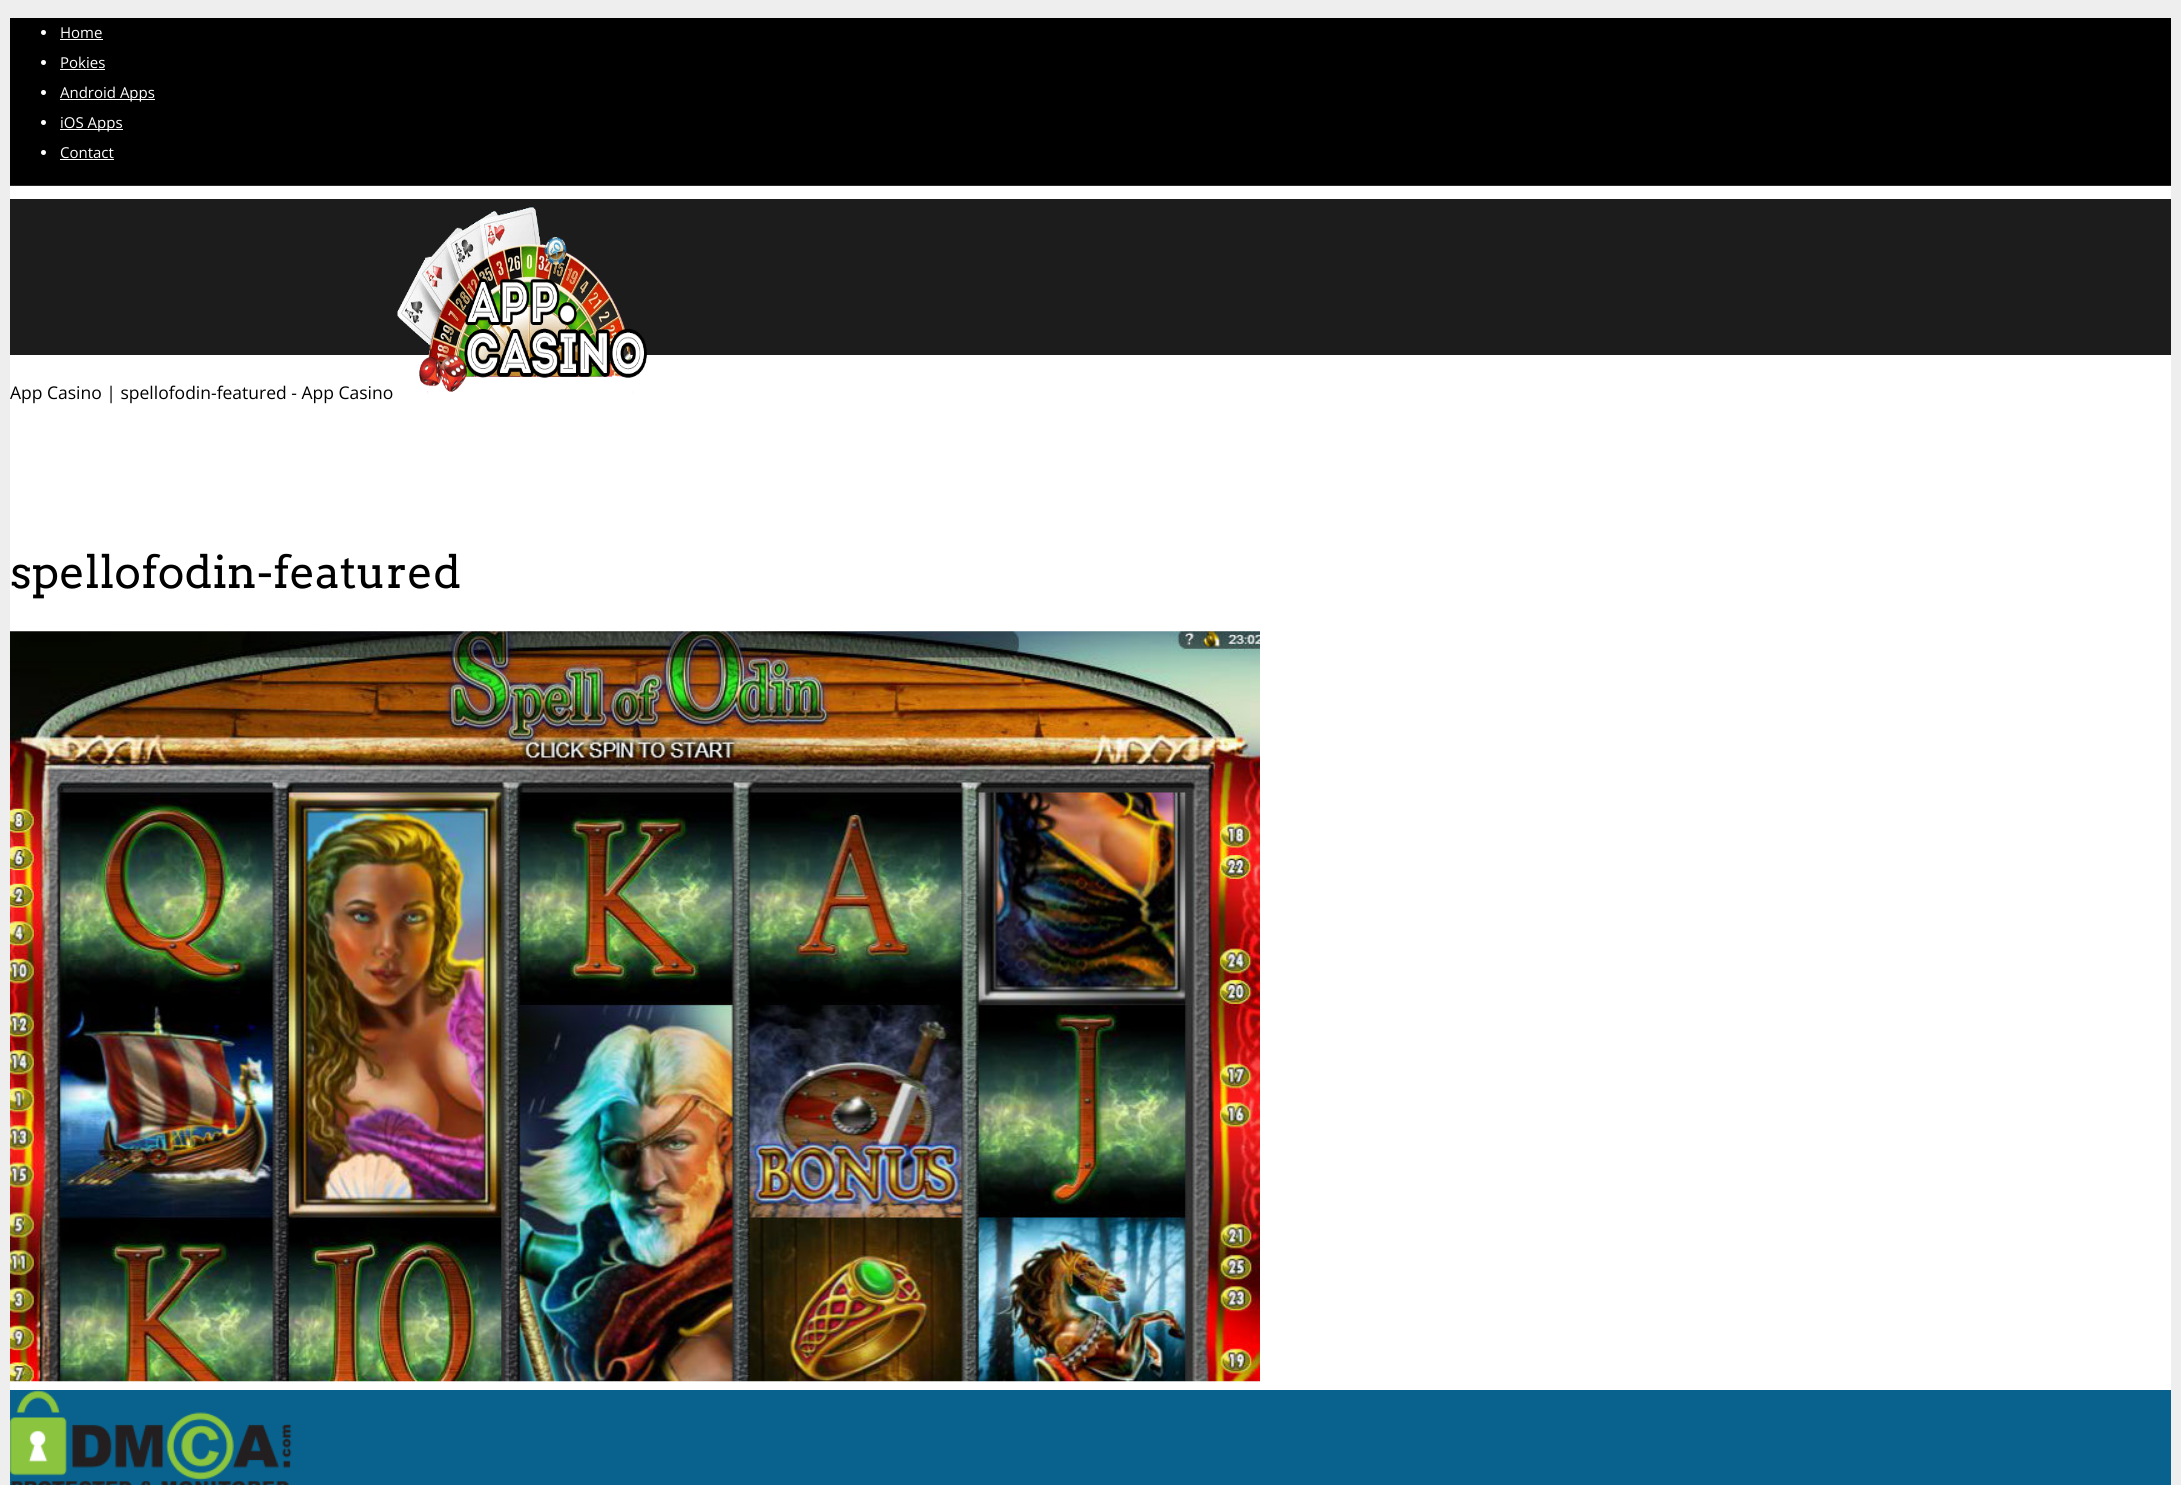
#include <cairo/cairo.h>
#include <math.h>
#include <stddef.h>


static void draw_image(cairo_t *cr, const char *path, double x, double y, double w, double h) {
  cairo_surface_t *image = cairo_image_surface_create_from_png(path);
  cairo_save(cr);
  cairo_set_source_surface(cr, image, x, y);
  cairo_rectangle(cr, x, y, w, h);
  cairo_fill(cr);
  cairo_restore(cr);
  cairo_surface_destroy(image);
}

static void draw(cairo_t *cr) {
  cairo_set_source_rgb(cr, 238 / 255.0, 238 / 255.0, 238 / 255.0);
  cairo_paint(cr);
  cairo_set_source_rgb(cr, 1, 1, 1);
  cairo_rectangle(cr, 10, 186, 2161, 1204);
  cairo_fill(cr);
  cairo_set_source_rgb(cr, 0, 0, 0);
  cairo_rectangle(cr, 10, 18, 2161, 167);
  cairo_fill(cr);
  cairo_set_source_rgb(cr, 41 / 255.0, 41 / 255.0, 41 / 255.0);
  cairo_rectangle(cr, 10, 185, 2161, 1);
  cairo_fill(cr);
  cairo_set_source_rgb(cr, 1, 1, 1);
  cairo_arc(cr, 43.5, 32.5, 2.5, 0, 2 * M_PI);
  cairo_fill(cr);
  cairo_rectangle(cr, 60, 39, 43, 1);
  cairo_fill(cr);
  cairo_arc(cr, 43.5, 62.5, 2.5, 0, 2 * M_PI);
  cairo_fill(cr);
  cairo_rectangle(cr, 60, 69, 45, 1);
  cairo_fill(cr);
  cairo_arc(cr, 43.5, 92.5, 2.5, 0, 2 * M_PI);
  cairo_fill(cr);
  cairo_rectangle(cr, 60, 99, 95, 1);
  cairo_fill(cr);
  cairo_arc(cr, 43.5, 122.5, 2.5, 0, 2 * M_PI);
  cairo_fill(cr);
  cairo_rectangle(cr, 60, 129, 63, 1);
  cairo_fill(cr);
  cairo_arc(cr, 43.5, 152.5, 2.5, 0, 2 * M_PI);
  cairo_fill(cr);
  cairo_rectangle(cr, 60, 159, 54, 1);
  cairo_fill(cr);
  cairo_set_source_rgb(cr, 28 / 255.0, 28 / 255.0, 28 / 255.0);
  cairo_rectangle(cr, 10, 199, 2161, 156);
  cairo_fill(cr);
  draw_image(cr, "images/1.png", 397, 206, 250, 188);
  draw_image(cr, "images/2.png", 10, 631, 1250, 751);
  cairo_set_source_rgb(cr, 9 / 255.0, 98 / 255.0, 141 / 255.0);
  cairo_rectangle(cr, 10, 1390, 2161, 95);
  cairo_fill(cr);
  draw_image(cr, "images/3.png", 10, 1390, 282, 95);
  cairo_select_font_face(cr, "Open Sans", CAIRO_FONT_SLANT_NORMAL, CAIRO_FONT_WEIGHT_NORMAL);
  cairo_set_font_size(cr, 15);
  cairo_set_source_rgb(cr, 1, 1, 1);
  cairo_move_to(cr, 60, 38);
  cairo_show_text(cr, "Home");
  cairo_move_to(cr, 60, 68);
  cairo_show_text(cr, "Pokies");
  cairo_move_to(cr, 60, 98);
  cairo_show_text(cr, "Android Apps");
  cairo_move_to(cr, 60, 128);
  cairo_show_text(cr, "iOS Apps");
  cairo_move_to(cr, 60, 158);
  cairo_show_text(cr, "Contact");
  cairo_set_font_size(cr, 17.5);
  cairo_set_source_rgb(cr, 0, 0, 0);
  cairo_move_to(cr, 10, 399);
  cairo_show_text(cr, "App Casino | spellofodin-featured - App Casino");
  cairo_select_font_face(cr, "Arvo", CAIRO_FONT_SLANT_NORMAL, CAIRO_FONT_WEIGHT_NORMAL);
  cairo_set_font_size(cr, 45);
  cairo_move_to(cr, 10, 588);
  cairo_show_text(cr, "spellofodin-featured");
}

int main(void) {
  cairo_surface_t *surface = cairo_image_surface_create(CAIRO_FORMAT_RGB24, 2181, 1485);
  cairo_t *cr = cairo_create(surface);
  cairo_font_options_t *options = cairo_font_options_create();
  cairo_font_options_set_hint_metrics(options, CAIRO_HINT_METRICS_OFF);
  cairo_font_options_set_hint_style(options, CAIRO_HINT_STYLE_NONE);
  cairo_set_font_options(cr, options);
  cairo_set_miter_limit(cr, 4);
  draw(cr);
  cairo_surface_write_to_png(surface, "out.png");
  cairo_font_options_destroy(options);
  cairo_destroy(cr);
  cairo_surface_destroy(surface);
  return 0;
}
